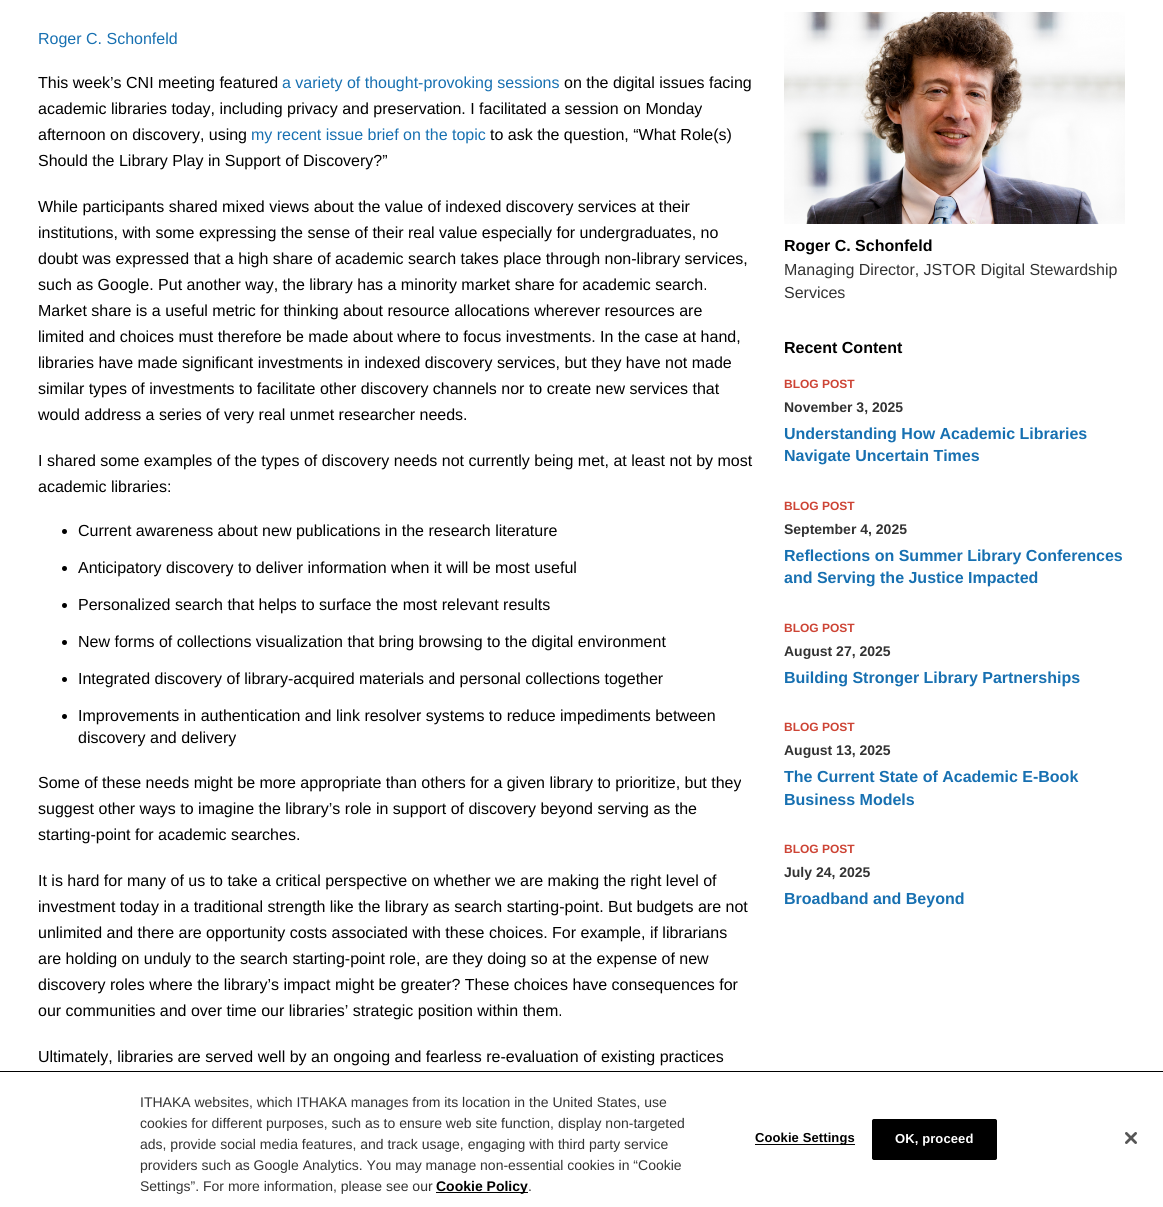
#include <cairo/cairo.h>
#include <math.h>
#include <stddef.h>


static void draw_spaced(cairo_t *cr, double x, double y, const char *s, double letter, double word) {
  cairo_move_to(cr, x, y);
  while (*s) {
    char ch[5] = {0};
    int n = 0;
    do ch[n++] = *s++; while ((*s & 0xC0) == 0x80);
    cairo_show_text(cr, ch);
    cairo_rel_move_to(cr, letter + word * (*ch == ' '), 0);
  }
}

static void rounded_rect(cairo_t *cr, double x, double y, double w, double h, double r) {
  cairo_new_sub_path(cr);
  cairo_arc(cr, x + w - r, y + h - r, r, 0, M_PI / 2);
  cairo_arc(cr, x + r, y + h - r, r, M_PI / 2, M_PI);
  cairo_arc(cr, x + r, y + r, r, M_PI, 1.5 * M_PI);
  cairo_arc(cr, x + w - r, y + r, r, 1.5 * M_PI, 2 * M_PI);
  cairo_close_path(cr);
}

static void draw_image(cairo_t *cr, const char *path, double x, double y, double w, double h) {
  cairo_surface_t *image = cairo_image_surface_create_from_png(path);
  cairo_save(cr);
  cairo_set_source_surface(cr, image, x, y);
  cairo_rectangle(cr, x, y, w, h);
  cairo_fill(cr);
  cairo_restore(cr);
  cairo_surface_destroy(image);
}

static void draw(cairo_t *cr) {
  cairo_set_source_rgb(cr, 1, 1, 1);
  cairo_paint(cr);
  cairo_set_source_rgb(cr, 0, 0, 0);
  cairo_arc(cr, 64.5, 531.5, 2.5, 0, 2 * M_PI);
  cairo_fill(cr);
  cairo_arc(cr, 64.5, 568.5, 2.5, 0, 2 * M_PI);
  cairo_fill(cr);
  cairo_arc(cr, 64.5, 605.5, 2.5, 0, 2 * M_PI);
  cairo_fill(cr);
  cairo_arc(cr, 64.5, 642.5, 2.5, 0, 2 * M_PI);
  cairo_fill(cr);
  cairo_arc(cr, 64.5, 679.5, 2.5, 0, 2 * M_PI);
  cairo_fill(cr);
  cairo_arc(cr, 64.5, 716.5, 2.5, 0, 2 * M_PI);
  cairo_fill(cr);
  draw_image(cr, "images/1.png", 784, 12, 341, 212);
  cairo_rectangle(cr, 0, 1071, 1163, 1);
  cairo_fill(cr);
  cairo_rectangle(cr, 436, 1192, 92, 1);
  cairo_fill(cr);
  cairo_rectangle(cr, 755, 1144, 100, 1);
  cairo_fill(cr);
  rounded_rect(cr, 872.5, 1119.5, 124, 40, 1.5);
  cairo_fill_preserve(cr);
  cairo_set_line_width(cr, 1);
  cairo_stroke(cr);
  draw_image(cr, "images/2.png", 1125, 1132, 12, 12);
  cairo_select_font_face(cr, "Liberation Sans", CAIRO_FONT_SLANT_NORMAL, CAIRO_FONT_WEIGHT_NORMAL);
  cairo_set_font_size(cr, 16);
  cairo_set_source_rgb(cr, 23 / 255.0, 112 / 255.0, 177 / 255.0);
  cairo_move_to(cr, 38, 44);
  cairo_show_text(cr, "Roger C. Schonfeld");
  cairo_set_source_rgb(cr, 0, 0, 0);
  cairo_move_to(cr, 38, 88);
  cairo_show_text(cr, "This week’s CNI meeting featured");
  cairo_set_source_rgb(cr, 23 / 255.0, 112 / 255.0, 177 / 255.0);
  cairo_move_to(cr, 282, 88);
  cairo_show_text(cr, "a variety of thought-provoking sessions");
  cairo_set_source_rgb(cr, 0, 0, 0);
  cairo_move_to(cr, 564, 88);
  cairo_show_text(cr, "on the digital issues facing");
  cairo_move_to(cr, 38, 114);
  cairo_show_text(cr, "academic libraries today, including privacy and preservation. I facilitated a session on Monday");
  cairo_move_to(cr, 38, 140);
  cairo_show_text(cr, "afternoon on discovery, using");
  cairo_set_source_rgb(cr, 23 / 255.0, 112 / 255.0, 177 / 255.0);
  cairo_move_to(cr, 251, 140);
  cairo_show_text(cr, "my recent issue brief on the topic");
  cairo_set_source_rgb(cr, 0, 0, 0);
  cairo_move_to(cr, 490, 140);
  cairo_show_text(cr, "to ask the question, “What Role(s)");
  cairo_move_to(cr, 38, 166);
  cairo_show_text(cr, "Should the Library Play in Support of Discovery?”");
  cairo_move_to(cr, 38, 212);
  cairo_show_text(cr, "While participants shared mixed views about the value of indexed discovery services at their");
  cairo_move_to(cr, 38, 238);
  cairo_show_text(cr, "institutions, with some expressing the sense of their real value especially for undergraduates, no");
  cairo_move_to(cr, 38, 264);
  cairo_show_text(cr, "doubt was expressed that a high share of academic search takes place through non-library services,");
  cairo_move_to(cr, 38, 290);
  cairo_show_text(cr, "such as Google. Put another way, the library has a minority market share for academic search.");
  cairo_move_to(cr, 38, 316);
  cairo_show_text(cr, "Market share is a useful metric for thinking about resource allocations wherever resources are");
  cairo_move_to(cr, 38, 342);
  cairo_show_text(cr, "limited and choices must therefore be made about where to focus investments. In the case at hand,");
  cairo_move_to(cr, 38, 368);
  cairo_show_text(cr, "libraries have made significant investments in indexed discovery services, but they have not made");
  cairo_move_to(cr, 38, 394);
  cairo_show_text(cr, "similar types of investments to facilitate other discovery channels nor to create new services that");
  cairo_move_to(cr, 38, 420);
  cairo_show_text(cr, "would address a series of very real unmet researcher needs.");
  cairo_move_to(cr, 38, 466);
  cairo_show_text(cr, "I shared some examples of the types of discovery needs not currently being met, at least not by most");
  cairo_move_to(cr, 38, 492);
  cairo_show_text(cr, "academic libraries:");
  cairo_move_to(cr, 78, 536);
  cairo_show_text(cr, "Current awareness about new publications in the research literature");
  cairo_move_to(cr, 78, 573);
  cairo_show_text(cr, "Anticipatory discovery to deliver information when it will be most useful");
  cairo_move_to(cr, 78, 610);
  cairo_show_text(cr, "Personalized search that helps to surface the most relevant results");
  cairo_move_to(cr, 78, 647);
  cairo_show_text(cr, "New forms of collections visualization that bring browsing to the digital environment");
  cairo_move_to(cr, 78, 684);
  cairo_show_text(cr, "Integrated discovery of library-acquired materials and personal collections together");
  cairo_move_to(cr, 78, 721);
  cairo_show_text(cr, "Improvements in authentication and link resolver systems to reduce impediments between");
  cairo_move_to(cr, 78, 743);
  cairo_show_text(cr, "discovery and delivery");
  cairo_move_to(cr, 38, 788);
  cairo_show_text(cr, "Some of these needs might be more appropriate than others for a given library to prioritize, but they");
  cairo_move_to(cr, 38, 814);
  cairo_show_text(cr, "suggest other ways to imagine the library’s role in support of discovery beyond serving as the");
  cairo_move_to(cr, 38, 840);
  cairo_show_text(cr, "starting-point for academic searches.");
  cairo_move_to(cr, 38, 886);
  cairo_show_text(cr, "It is hard for many of us to take a critical perspective on whether we are making the right level of");
  cairo_move_to(cr, 38, 912);
  cairo_show_text(cr, "investment today in a traditional strength like the library as search starting-point. But budgets are not");
  cairo_move_to(cr, 38, 938);
  cairo_show_text(cr, "unlimited and there are opportunity costs associated with these choices. For example, if librarians");
  cairo_move_to(cr, 38, 964);
  cairo_show_text(cr, "are holding on unduly to the search starting-point role, are they doing so at the expense of new");
  cairo_move_to(cr, 38, 990);
  cairo_show_text(cr, "discovery roles where the library’s impact might be greater? These choices have consequences for");
  cairo_move_to(cr, 38, 1016);
  cairo_show_text(cr, "our communities and over time our libraries’ strategic position within them.");
  cairo_move_to(cr, 38, 1062);
  cairo_show_text(cr, "Ultimately, libraries are served well by an ongoing and fearless re-evaluation of existing practices");
  cairo_select_font_face(cr, "Liberation Sans", CAIRO_FONT_SLANT_NORMAL, CAIRO_FONT_WEIGHT_BOLD);
  cairo_move_to(cr, 784, 251);
  cairo_show_text(cr, "Roger C. Schonfeld");
  cairo_select_font_face(cr, "Liberation Sans", CAIRO_FONT_SLANT_NORMAL, CAIRO_FONT_WEIGHT_NORMAL);
  cairo_set_source_rgb(cr, 51 / 255.0, 51 / 255.0, 51 / 255.0);
  cairo_move_to(cr, 784, 275);
  cairo_show_text(cr, "Managing Director, JSTOR Digital Stewardship");
  cairo_move_to(cr, 784, 298);
  cairo_show_text(cr, "Services");
  cairo_select_font_face(cr, "Liberation Sans", CAIRO_FONT_SLANT_NORMAL, CAIRO_FONT_WEIGHT_BOLD);
  cairo_set_source_rgb(cr, 0, 0, 0);
  cairo_move_to(cr, 784, 353);
  cairo_show_text(cr, "Recent Content");
  cairo_set_font_size(cr, 12);
  cairo_set_source_rgb(cr, 205 / 255.0, 68 / 255.0, 53 / 255.0);
  cairo_move_to(cr, 784, 388);
  cairo_show_text(cr, "BLOG POST");
  cairo_set_font_size(cr, 14);
  cairo_set_source_rgb(cr, 51 / 255.0, 51 / 255.0, 51 / 255.0);
  cairo_move_to(cr, 784, 412);
  cairo_show_text(cr, "November 3, 2025");
  cairo_set_font_size(cr, 16);
  cairo_set_source_rgb(cr, 23 / 255.0, 112 / 255.0, 177 / 255.0);
  cairo_move_to(cr, 784, 439);
  cairo_show_text(cr, "Understanding How Academic Libraries");
  cairo_move_to(cr, 784, 461);
  cairo_show_text(cr, "Navigate Uncertain Times");
  cairo_set_font_size(cr, 12);
  cairo_set_source_rgb(cr, 205 / 255.0, 68 / 255.0, 53 / 255.0);
  cairo_move_to(cr, 784, 510);
  cairo_show_text(cr, "BLOG POST");
  cairo_set_font_size(cr, 14);
  cairo_set_source_rgb(cr, 51 / 255.0, 51 / 255.0, 51 / 255.0);
  cairo_move_to(cr, 784, 534);
  cairo_show_text(cr, "September 4, 2025");
  cairo_set_font_size(cr, 16);
  cairo_set_source_rgb(cr, 23 / 255.0, 112 / 255.0, 177 / 255.0);
  cairo_move_to(cr, 784, 561);
  cairo_show_text(cr, "Reflections on Summer Library Conferences");
  cairo_move_to(cr, 784, 583);
  cairo_show_text(cr, "and Serving the Justice Impacted");
  cairo_set_font_size(cr, 12);
  cairo_set_source_rgb(cr, 205 / 255.0, 68 / 255.0, 53 / 255.0);
  cairo_move_to(cr, 784, 632);
  cairo_show_text(cr, "BLOG POST");
  cairo_set_font_size(cr, 14);
  cairo_set_source_rgb(cr, 51 / 255.0, 51 / 255.0, 51 / 255.0);
  cairo_move_to(cr, 784, 656);
  cairo_show_text(cr, "August 27, 2025");
  cairo_set_font_size(cr, 16);
  cairo_set_source_rgb(cr, 23 / 255.0, 112 / 255.0, 177 / 255.0);
  cairo_move_to(cr, 784, 683);
  cairo_show_text(cr, "Building Stronger Library Partnerships");
  cairo_set_font_size(cr, 12);
  cairo_set_source_rgb(cr, 205 / 255.0, 68 / 255.0, 53 / 255.0);
  cairo_move_to(cr, 784, 731);
  cairo_show_text(cr, "BLOG POST");
  cairo_set_font_size(cr, 14);
  cairo_set_source_rgb(cr, 51 / 255.0, 51 / 255.0, 51 / 255.0);
  cairo_move_to(cr, 784, 755);
  cairo_show_text(cr, "August 13, 2025");
  cairo_set_font_size(cr, 16);
  cairo_set_source_rgb(cr, 23 / 255.0, 112 / 255.0, 177 / 255.0);
  cairo_move_to(cr, 784, 782);
  cairo_show_text(cr, "The Current State of Academic E-Book");
  cairo_move_to(cr, 784, 805);
  cairo_show_text(cr, "Business Models");
  cairo_set_font_size(cr, 12);
  cairo_set_source_rgb(cr, 205 / 255.0, 68 / 255.0, 53 / 255.0);
  cairo_move_to(cr, 784, 853);
  cairo_show_text(cr, "BLOG POST");
  cairo_set_font_size(cr, 14);
  cairo_set_source_rgb(cr, 51 / 255.0, 51 / 255.0, 51 / 255.0);
  cairo_move_to(cr, 784, 877);
  cairo_show_text(cr, "July 24, 2025");
  cairo_set_font_size(cr, 16);
  cairo_set_source_rgb(cr, 23 / 255.0, 112 / 255.0, 177 / 255.0);
  cairo_move_to(cr, 784, 904);
  cairo_show_text(cr, "Broadband and Beyond");
  cairo_select_font_face(cr, "Liberation Sans", CAIRO_FONT_SLANT_NORMAL, CAIRO_FONT_WEIGHT_NORMAL);
  cairo_set_font_size(cr, 14);
  cairo_set_source_rgb(cr, 51 / 255.0, 51 / 255.0, 51 / 255.0);
  cairo_move_to(cr, 140, 1107);
  cairo_show_text(cr, "ITHAKA websites, which ITHAKA manages from its location in the United States, use");
  cairo_move_to(cr, 140, 1128);
  cairo_show_text(cr, "cookies for different purposes, such as to ensure web site function, display non-targeted");
  cairo_move_to(cr, 140, 1149);
  cairo_show_text(cr, "ads, provide social media features, and track usage, engaging with third party service");
  cairo_move_to(cr, 140, 1170);
  cairo_show_text(cr, "providers such as Google Analytics. You may manage non-essential cookies in “Cookie");
  cairo_move_to(cr, 140, 1191);
  cairo_show_text(cr, "Settings”. For more information, please see our");
  cairo_select_font_face(cr, "Liberation Sans", CAIRO_FONT_SLANT_NORMAL, CAIRO_FONT_WEIGHT_BOLD);
  cairo_set_source_rgb(cr, 0, 0, 0);
  cairo_move_to(cr, 436, 1191);
  cairo_show_text(cr, "Cookie Policy");
  cairo_select_font_face(cr, "Liberation Sans", CAIRO_FONT_SLANT_NORMAL, CAIRO_FONT_WEIGHT_NORMAL);
  cairo_set_source_rgb(cr, 51 / 255.0, 51 / 255.0, 51 / 255.0);
  cairo_move_to(cr, 528, 1191);
  cairo_show_text(cr, ".");
  cairo_select_font_face(cr, "Liberation Sans", CAIRO_FONT_SLANT_NORMAL, CAIRO_FONT_WEIGHT_BOLD);
  cairo_set_font_size(cr, 13);
  cairo_set_source_rgb(cr, 0, 0, 0);
  draw_spaced(cr, 755, 1142, "Cookie Settings", 0.1, 0);
  cairo_set_source_rgb(cr, 1, 1, 1);
  draw_spaced(cr, 895, 1143, "OK, proceed", 0.1, 0);
}

int main(void) {
  cairo_surface_t *surface = cairo_image_surface_create(CAIRO_FORMAT_RGB24, 1163, 1207);
  cairo_t *cr = cairo_create(surface);
  cairo_font_options_t *options = cairo_font_options_create();
  cairo_font_options_set_hint_metrics(options, CAIRO_HINT_METRICS_OFF);
  cairo_font_options_set_hint_style(options, CAIRO_HINT_STYLE_NONE);
  cairo_set_font_options(cr, options);
  cairo_set_miter_limit(cr, 4);
  draw(cr);
  cairo_surface_write_to_png(surface, "out.png");
  cairo_font_options_destroy(options);
  cairo_destroy(cr);
  cairo_surface_destroy(surface);
  return 0;
}
